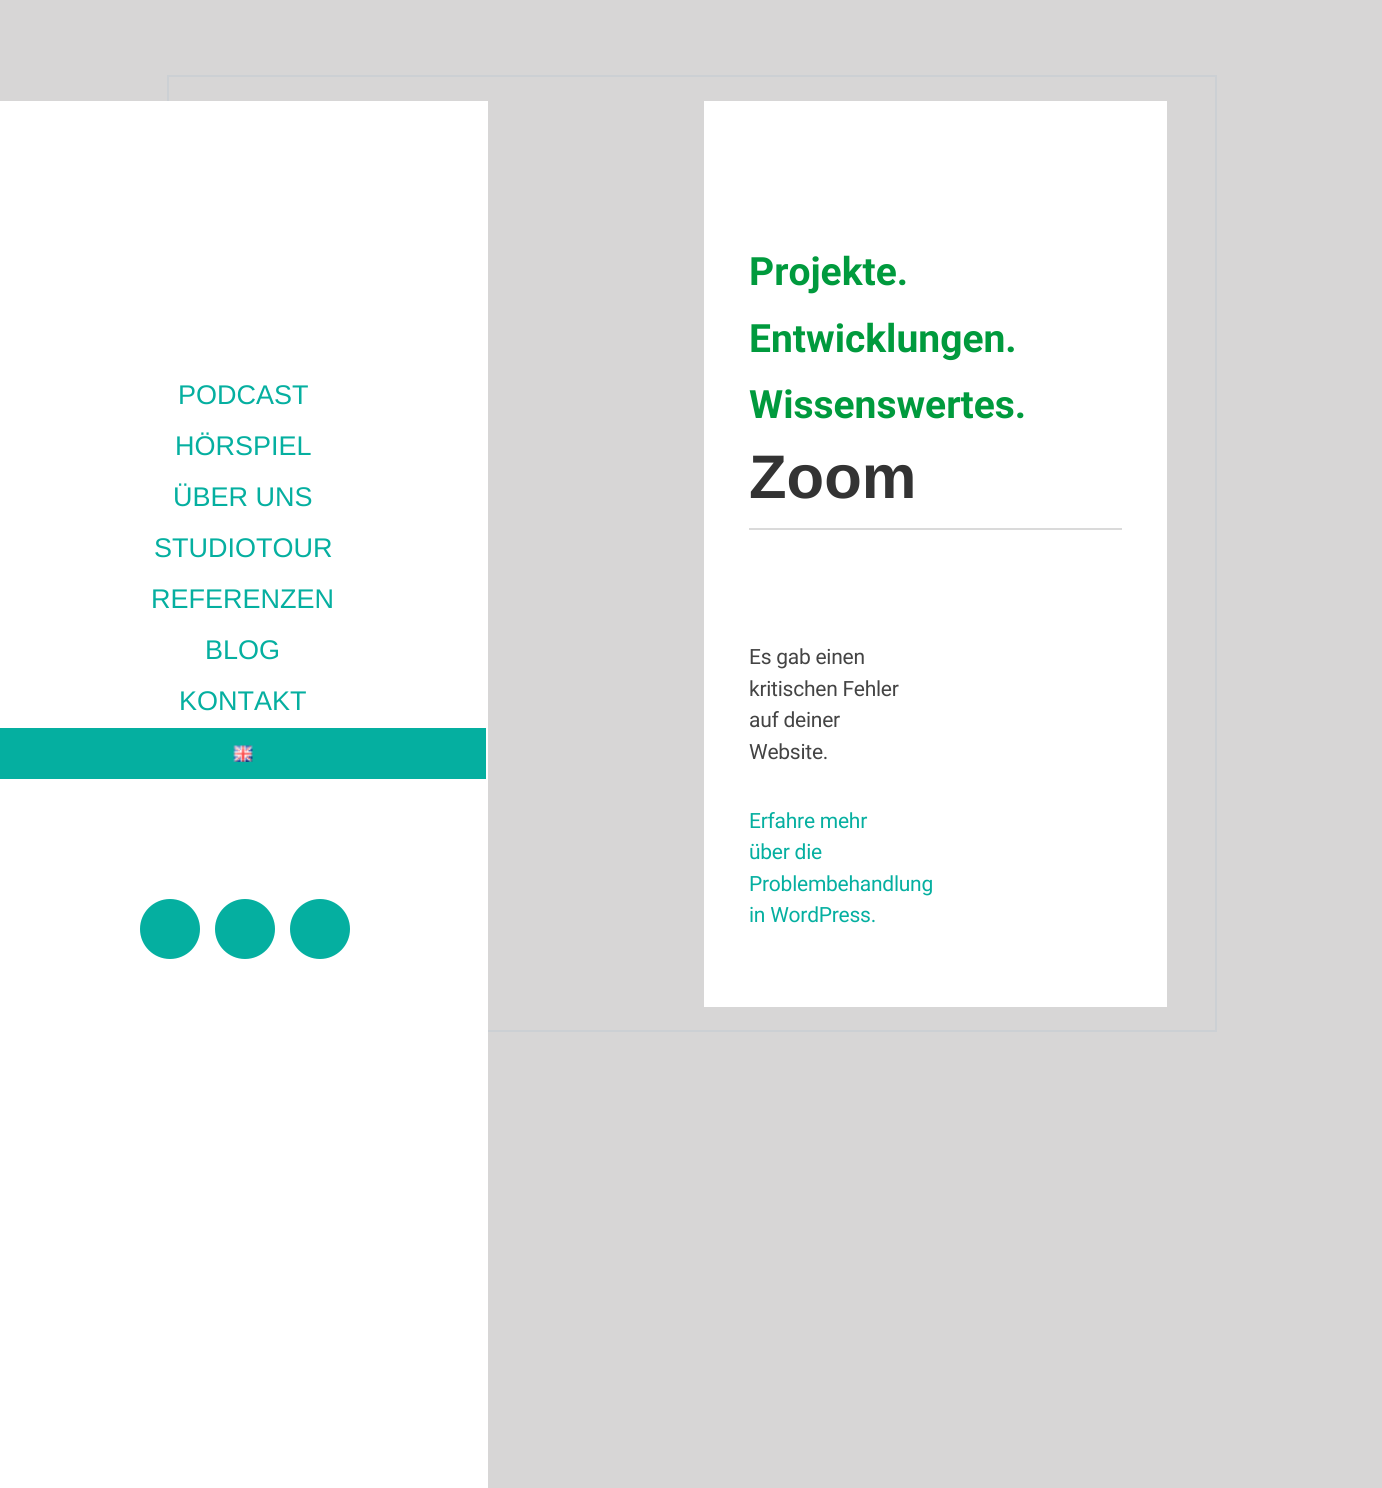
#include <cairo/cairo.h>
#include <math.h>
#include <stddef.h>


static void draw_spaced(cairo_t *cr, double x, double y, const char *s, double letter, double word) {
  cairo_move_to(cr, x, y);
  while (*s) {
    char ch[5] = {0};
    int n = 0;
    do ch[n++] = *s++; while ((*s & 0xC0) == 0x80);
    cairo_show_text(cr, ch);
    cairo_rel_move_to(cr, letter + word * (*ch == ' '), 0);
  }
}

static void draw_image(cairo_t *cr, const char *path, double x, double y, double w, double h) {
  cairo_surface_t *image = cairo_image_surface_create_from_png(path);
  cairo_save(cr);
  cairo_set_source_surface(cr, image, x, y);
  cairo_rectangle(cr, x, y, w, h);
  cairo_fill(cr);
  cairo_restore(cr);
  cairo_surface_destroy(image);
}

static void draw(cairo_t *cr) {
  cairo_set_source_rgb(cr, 215 / 255.0, 214 / 255.0, 214 / 255.0);
  cairo_paint(cr);
  cairo_rectangle(cr, 168, 76, 1048, 955);
  cairo_set_source_rgb(cr, 204 / 255.0, 208 / 255.0, 212 / 255.0);
  cairo_stroke(cr);
  cairo_set_source_rgb(cr, 1, 1, 1);
  cairo_rectangle(cr, 704, 101, 463, 906);
  cairo_fill(cr);
  cairo_rectangle(cr, 0, 101, 488, 1387);
  cairo_fill(cr);
  cairo_set_source_rgb(cr, 5 / 255.0, 175 / 255.0, 160 / 255.0);
  cairo_rectangle(cr, 0, 728, 486, 51);
  cairo_fill(cr);
  draw_image(cr, "images/1.png", 233, 745, 20, 17);
  cairo_arc(cr, 170, 929, 29, 0, 2 * M_PI);
  cairo_fill_preserve(cr);
  cairo_stroke(cr);
  cairo_arc(cr, 245, 929, 29, 0, 2 * M_PI);
  cairo_fill_preserve(cr);
  cairo_stroke(cr);
  cairo_arc(cr, 320, 929, 29, 0, 2 * M_PI);
  cairo_fill_preserve(cr);
  cairo_stroke(cr);
  cairo_set_source_rgb(cr, 218 / 255.0, 218 / 255.0, 218 / 255.0);
  cairo_rectangle(cr, 749, 528, 373, 2);
  cairo_fill(cr);
  cairo_select_font_face(cr, "Liberation Sans", CAIRO_FONT_SLANT_NORMAL, CAIRO_FONT_WEIGHT_NORMAL);
  cairo_set_font_size(cr, 27);
  cairo_set_source_rgb(cr, 5 / 255.0, 175 / 255.0, 160 / 255.0);
  cairo_move_to(cr, 178, 404);
  cairo_show_text(cr, "PODCAST");
  cairo_move_to(cr, 175, 455);
  cairo_show_text(cr, "HÖRSPIEL");
  cairo_move_to(cr, 173, 506);
  cairo_show_text(cr, "ÜBER UNS");
  cairo_move_to(cr, 154, 557);
  cairo_show_text(cr, "STUDIOTOUR");
  cairo_move_to(cr, 151, 608);
  cairo_show_text(cr, "REFERENZEN");
  cairo_move_to(cr, 205, 659);
  cairo_show_text(cr, "BLOG");
  cairo_move_to(cr, 179, 710);
  cairo_show_text(cr, "KONTAKT");
  cairo_select_font_face(cr, "Roboto", CAIRO_FONT_SLANT_NORMAL, CAIRO_FONT_WEIGHT_BOLD);
  cairo_set_font_size(cr, 39);
  cairo_set_source_rgb(cr, 0, 154 / 255.0, 61 / 255.0);
  cairo_move_to(cr, 749, 285);
  cairo_show_text(cr, "Projekte.");
  cairo_move_to(cr, 749, 352);
  cairo_show_text(cr, "Entwicklungen.");
  cairo_move_to(cr, 749, 418);
  cairo_show_text(cr, "Wissenswertes.");
  cairo_select_font_face(cr, "Liberation Sans", CAIRO_FONT_SLANT_NORMAL, CAIRO_FONT_WEIGHT_BOLD);
  cairo_set_font_size(cr, 61.5);
  cairo_set_source_rgb(cr, 51 / 255.0, 51 / 255.0, 51 / 255.0);
  cairo_move_to(cr, 749, 498);
  cairo_show_text(cr, "Zoom");
  cairo_select_font_face(cr, "Roboto", CAIRO_FONT_SLANT_NORMAL, CAIRO_FONT_WEIGHT_NORMAL);
  cairo_set_font_size(cr, 21);
  cairo_set_source_rgb(cr, 68 / 255.0, 68 / 255.0, 68 / 255.0);
  draw_spaced(cr, 749, 664, "Es gab einen", -0.25, 0);
  draw_spaced(cr, 749, 696, "kritischen Fehler", -0.25, 0);
  draw_spaced(cr, 749, 727, "auf deiner", -0.25, 0);
  draw_spaced(cr, 749, 759, "Website.", -0.25, 0);
  cairo_set_source_rgb(cr, 5 / 255.0, 175 / 255.0, 160 / 255.0);
  draw_spaced(cr, 749, 828, "Erfahre mehr", -0.25, 0);
  draw_spaced(cr, 749, 859, "über die", -0.25, 0);
  draw_spaced(cr, 749, 891, "Problembehandlung", -0.25, 0);
  draw_spaced(cr, 749, 922, "in WordPress.", -0.25, 0);
}

int main(void) {
  cairo_surface_t *surface = cairo_image_surface_create(CAIRO_FORMAT_RGB24, 1382, 1488);
  cairo_t *cr = cairo_create(surface);
  cairo_font_options_t *options = cairo_font_options_create();
  cairo_font_options_set_hint_metrics(options, CAIRO_HINT_METRICS_OFF);
  cairo_font_options_set_hint_style(options, CAIRO_HINT_STYLE_NONE);
  cairo_set_font_options(cr, options);
  cairo_set_miter_limit(cr, 4);
  draw(cr);
  cairo_surface_write_to_png(surface, "out.png");
  cairo_font_options_destroy(options);
  cairo_destroy(cr);
  cairo_surface_destroy(surface);
  return 0;
}
